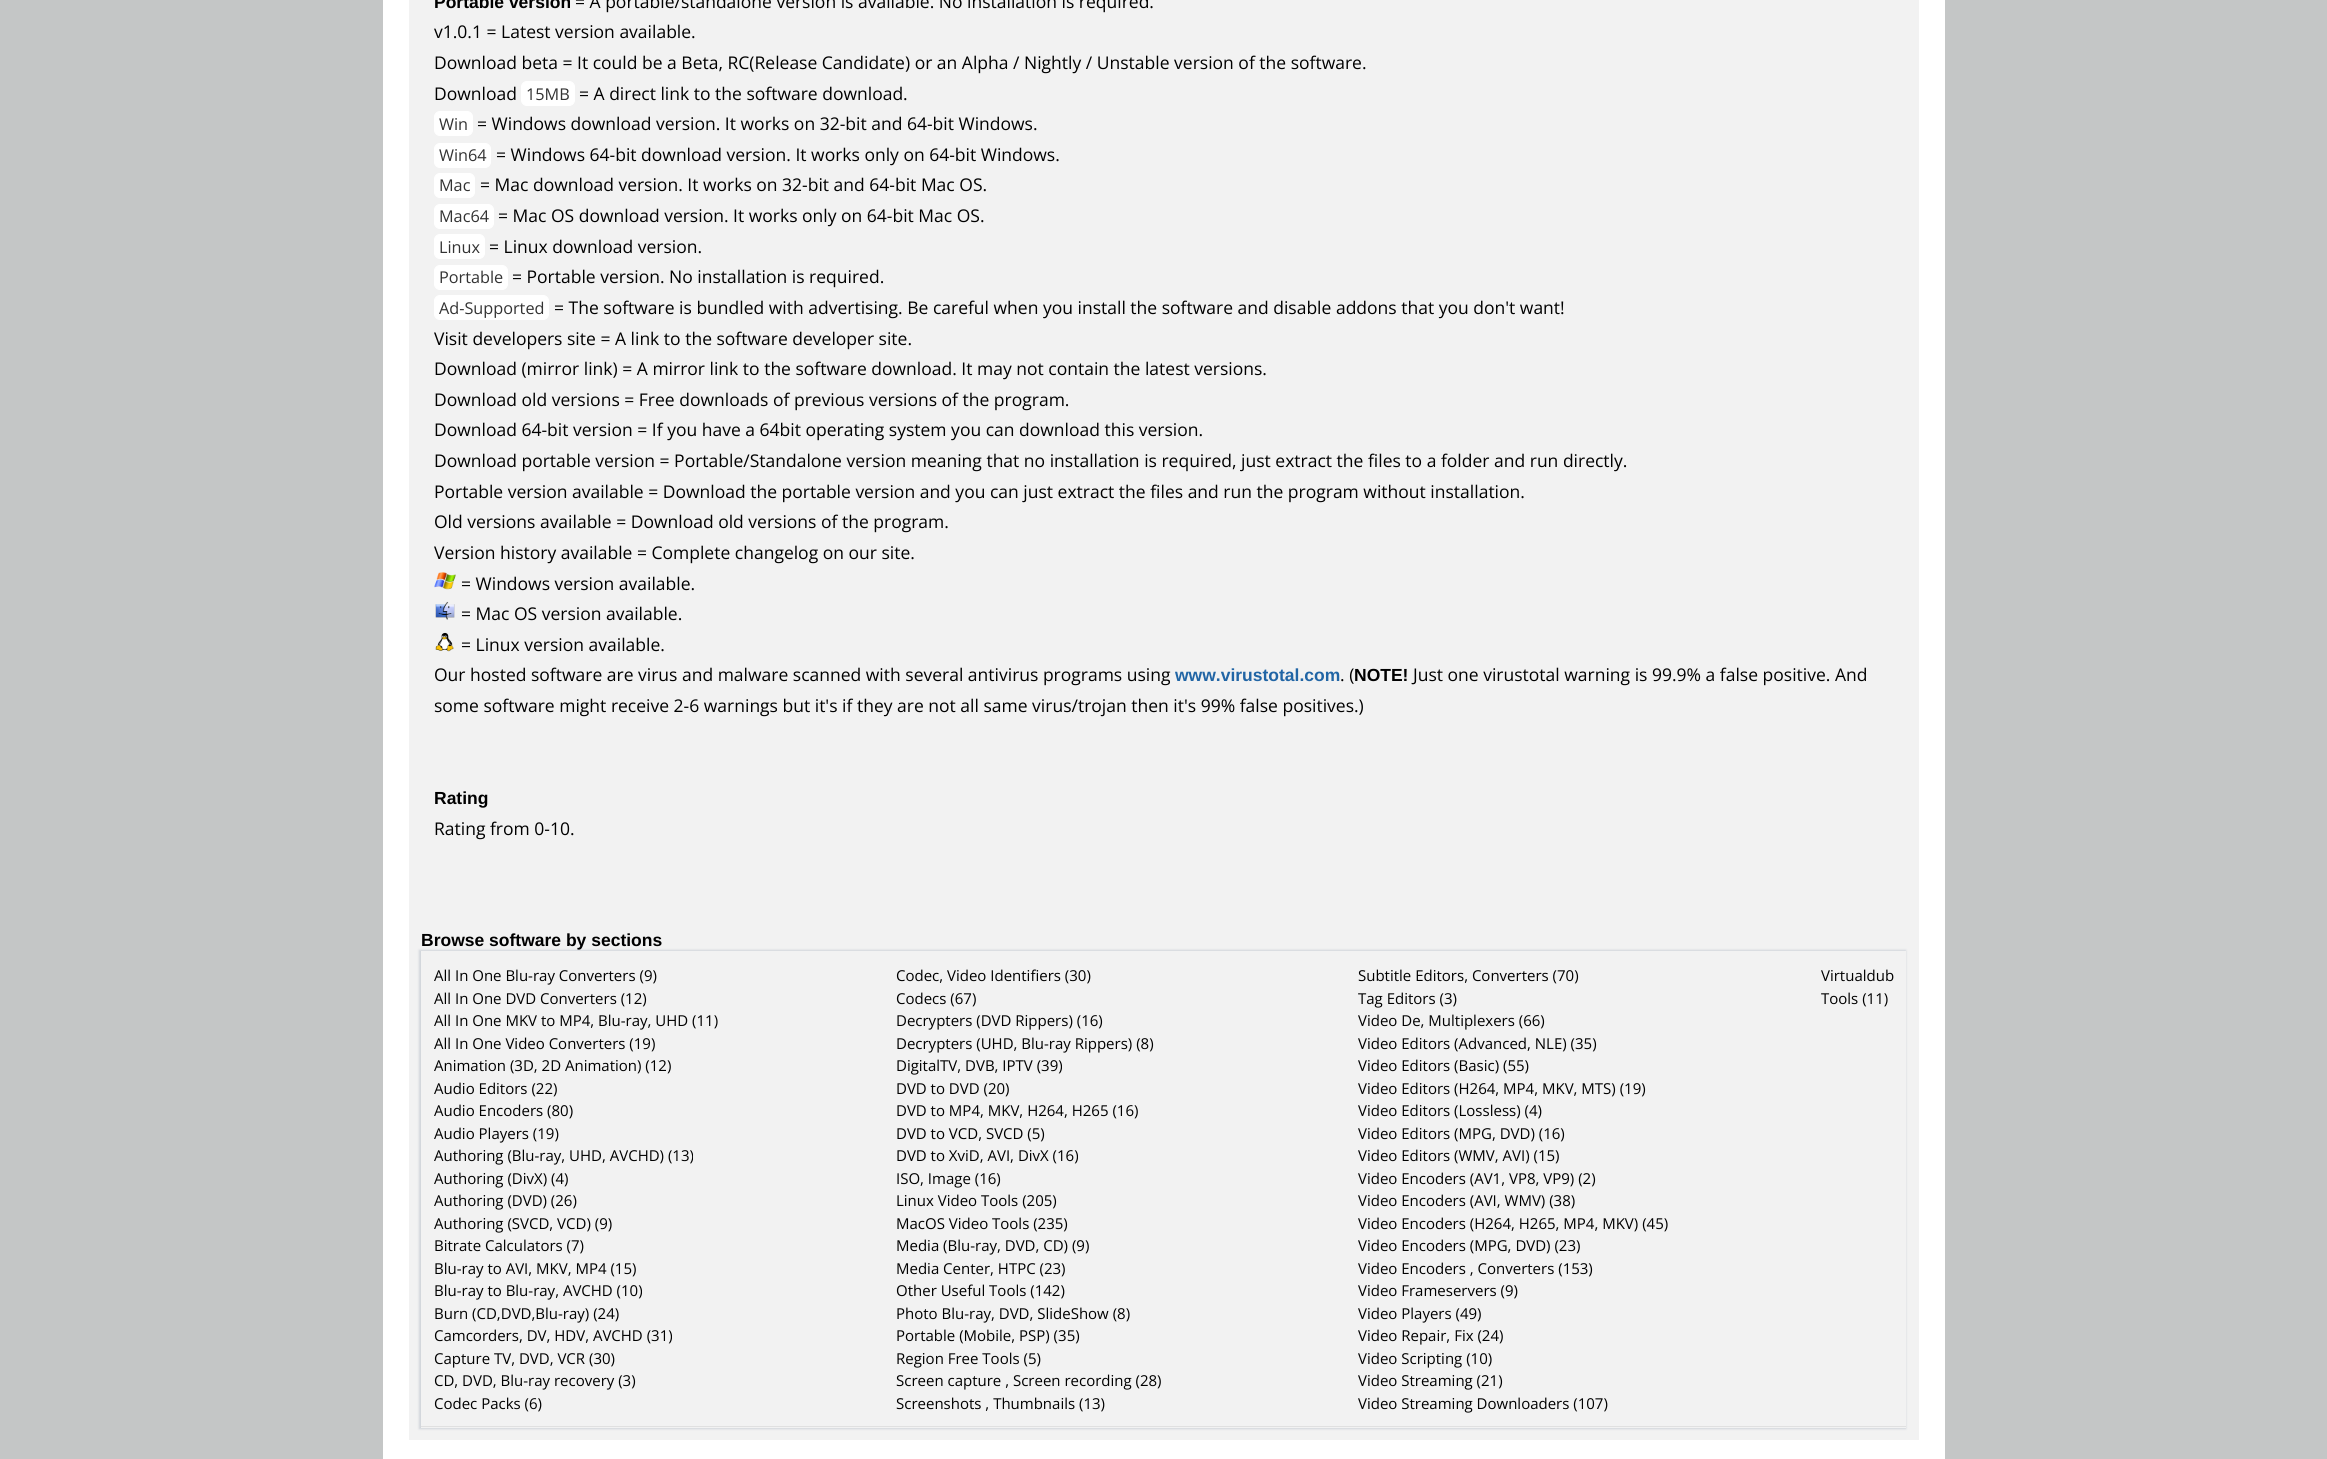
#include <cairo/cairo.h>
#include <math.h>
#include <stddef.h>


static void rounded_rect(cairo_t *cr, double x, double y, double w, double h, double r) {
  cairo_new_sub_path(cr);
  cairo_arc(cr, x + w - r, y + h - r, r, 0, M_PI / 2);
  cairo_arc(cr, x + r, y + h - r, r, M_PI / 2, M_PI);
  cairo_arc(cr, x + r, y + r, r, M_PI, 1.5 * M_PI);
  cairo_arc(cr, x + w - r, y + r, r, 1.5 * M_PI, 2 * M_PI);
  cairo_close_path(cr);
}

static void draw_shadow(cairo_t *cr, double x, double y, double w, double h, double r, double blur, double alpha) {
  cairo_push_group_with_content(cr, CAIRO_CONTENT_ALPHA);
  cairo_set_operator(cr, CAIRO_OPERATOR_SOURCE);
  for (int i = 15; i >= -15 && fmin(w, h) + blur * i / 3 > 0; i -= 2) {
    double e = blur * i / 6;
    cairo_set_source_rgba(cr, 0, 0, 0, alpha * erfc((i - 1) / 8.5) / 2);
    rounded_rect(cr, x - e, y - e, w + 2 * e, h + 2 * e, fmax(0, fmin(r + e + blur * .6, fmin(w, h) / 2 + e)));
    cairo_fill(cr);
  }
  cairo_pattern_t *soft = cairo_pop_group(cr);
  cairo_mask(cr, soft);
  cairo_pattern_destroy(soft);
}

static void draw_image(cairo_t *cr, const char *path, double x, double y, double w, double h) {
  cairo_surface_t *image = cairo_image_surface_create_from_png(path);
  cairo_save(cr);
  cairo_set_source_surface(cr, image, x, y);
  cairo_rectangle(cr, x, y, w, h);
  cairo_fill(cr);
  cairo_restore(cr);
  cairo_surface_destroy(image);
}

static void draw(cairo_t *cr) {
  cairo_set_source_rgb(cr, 196 / 255.0, 198 / 255.0, 198 / 255.0);
  cairo_paint(cr);
  cairo_set_source_rgb(cr, 1, 1, 1);
  cairo_rectangle(cr, 383, 0, 1562, 1459);
  cairo_fill(cr);
  cairo_set_source_rgb(cr, 242 / 255.0, 242 / 255.0, 242 / 255.0);
  cairo_rectangle(cr, 409, 0, 1510, 1440);
  cairo_fill(cr);
  cairo_set_source_rgb(cr, 1, 1, 1);
  rounded_rect(cr, 521.5, 81.5, 53, 24, 5.5);
  cairo_fill_preserve(cr);
  cairo_set_line_width(cr, 1);
  cairo_stroke(cr);
  rounded_rect(cr, 434.5, 111.5, 38, 24, 5.5);
  cairo_fill_preserve(cr);
  cairo_stroke(cr);
  rounded_rect(cr, 434.5, 143.5, 56, 24, 5.5);
  cairo_fill_preserve(cr);
  cairo_stroke(cr);
  rounded_rect(cr, 434.5, 173.5, 40, 24, 5.5);
  cairo_fill_preserve(cr);
  cairo_stroke(cr);
  rounded_rect(cr, 434.5, 204.5, 59, 24, 5.5);
  cairo_fill_preserve(cr);
  cairo_stroke(cr);
  rounded_rect(cr, 434.5, 234.5, 50, 24, 5.5);
  cairo_fill_preserve(cr);
  cairo_stroke(cr);
  rounded_rect(cr, 434.5, 265.5, 73, 24, 5.5);
  cairo_fill_preserve(cr);
  cairo_stroke(cr);
  rounded_rect(cr, 434.5, 295.5, 114, 24, 5.5);
  cairo_fill_preserve(cr);
  cairo_stroke(cr);
  draw_image(cr, "images/1.png", 434, 572, 22, 18);
  draw_image(cr, "images/2.png", 435, 601, 20, 19);
  draw_image(cr, "images/3.png", 435, 632, 19, 20);
  cairo_set_source_rgb(cr, 203 / 255.0, 208 / 255.0, 214 / 255.0);
  draw_shadow(cr, 419, 950, 1487, 479, 0, 1, 0.87);
  cairo_set_source_rgb(cr, 242 / 255.0, 242 / 255.0, 242 / 255.0);
  cairo_rectangle(cr, 421, 951, 1485, 477);
  cairo_fill(cr);
  cairo_set_source_rgb(cr, 224 / 255.0, 224 / 255.0, 224 / 255.0);
  cairo_rectangle(cr, 421, 1426, 1485, 1);
  cairo_fill(cr);
  cairo_select_font_face(cr, "Liberation Sans", CAIRO_FONT_SLANT_NORMAL, CAIRO_FONT_WEIGHT_BOLD);
  cairo_set_font_size(cr, 17.5);
  cairo_set_source_rgb(cr, 0, 0, 0);
  cairo_move_to(cr, 434, 8);
  cairo_show_text(cr, "Portable version");
  cairo_select_font_face(cr, "Open Sans", CAIRO_FONT_SLANT_NORMAL, CAIRO_FONT_WEIGHT_NORMAL);
  cairo_move_to(cr, 575, 8);
  cairo_show_text(cr, "= A portable/standalone version is available. No installation is required.");
  cairo_move_to(cr, 434, 38);
  cairo_show_text(cr, "v1.0.1 = Latest version available.");
  cairo_move_to(cr, 434, 69);
  cairo_show_text(cr, "Download beta = It could be a Beta, RC(Release Candidate) or an Alpha / Nightly / Unstable version of the software.");
  cairo_move_to(cr, 434, 100);
  cairo_show_text(cr, "Download");
  cairo_set_font_size(cr, 16.25);
  cairo_set_source_rgb(cr, 51 / 255.0, 51 / 255.0, 51 / 255.0);
  cairo_move_to(cr, 526, 100);
  cairo_show_text(cr, "15MB");
  cairo_set_font_size(cr, 17.5);
  cairo_set_source_rgb(cr, 0, 0, 0);
  cairo_move_to(cr, 579, 100);
  cairo_show_text(cr, "= A direct link to the software download.");
  cairo_set_font_size(cr, 16.25);
  cairo_set_source_rgb(cr, 51 / 255.0, 51 / 255.0, 51 / 255.0);
  cairo_move_to(cr, 439, 130);
  cairo_show_text(cr, "Win");
  cairo_set_font_size(cr, 17.5);
  cairo_set_source_rgb(cr, 0, 0, 0);
  cairo_move_to(cr, 477, 130);
  cairo_show_text(cr, "= Windows download version. It works on 32-bit and 64-bit Windows.");
  cairo_set_font_size(cr, 16.25);
  cairo_set_source_rgb(cr, 51 / 255.0, 51 / 255.0, 51 / 255.0);
  cairo_move_to(cr, 439, 161);
  cairo_show_text(cr, "Win64");
  cairo_set_font_size(cr, 17.5);
  cairo_set_source_rgb(cr, 0, 0, 0);
  cairo_move_to(cr, 496, 161);
  cairo_show_text(cr, "= Windows 64-bit download version. It works only on 64-bit Windows.");
  cairo_set_font_size(cr, 16.25);
  cairo_set_source_rgb(cr, 51 / 255.0, 51 / 255.0, 51 / 255.0);
  cairo_move_to(cr, 439, 191);
  cairo_show_text(cr, "Mac");
  cairo_set_font_size(cr, 17.5);
  cairo_set_source_rgb(cr, 0, 0, 0);
  cairo_move_to(cr, 480, 191);
  cairo_show_text(cr, "= Mac download version. It works on 32-bit and 64-bit Mac OS.");
  cairo_set_font_size(cr, 16.25);
  cairo_set_source_rgb(cr, 51 / 255.0, 51 / 255.0, 51 / 255.0);
  cairo_move_to(cr, 439, 222);
  cairo_show_text(cr, "Mac64");
  cairo_set_font_size(cr, 17.5);
  cairo_set_source_rgb(cr, 0, 0, 0);
  cairo_move_to(cr, 498, 222);
  cairo_show_text(cr, "= Mac OS download version. It works only on 64-bit Mac OS.");
  cairo_set_font_size(cr, 16.25);
  cairo_set_source_rgb(cr, 51 / 255.0, 51 / 255.0, 51 / 255.0);
  cairo_move_to(cr, 439, 253);
  cairo_show_text(cr, "Linux");
  cairo_set_font_size(cr, 17.5);
  cairo_set_source_rgb(cr, 0, 0, 0);
  cairo_move_to(cr, 489, 253);
  cairo_show_text(cr, "= Linux download version.");
  cairo_set_font_size(cr, 16.25);
  cairo_set_source_rgb(cr, 51 / 255.0, 51 / 255.0, 51 / 255.0);
  cairo_move_to(cr, 439, 283);
  cairo_show_text(cr, "Portable");
  cairo_set_font_size(cr, 17.5);
  cairo_set_source_rgb(cr, 0, 0, 0);
  cairo_move_to(cr, 512, 283);
  cairo_show_text(cr, "= Portable version. No installation is required.");
  cairo_set_font_size(cr, 16.25);
  cairo_set_source_rgb(cr, 51 / 255.0, 51 / 255.0, 51 / 255.0);
  cairo_move_to(cr, 439, 314);
  cairo_show_text(cr, "Ad-Supported");
  cairo_set_font_size(cr, 17.5);
  cairo_set_source_rgb(cr, 0, 0, 0);
  cairo_move_to(cr, 554, 314);
  cairo_show_text(cr, "= The software is bundled with advertising. Be careful when you install the software and disable addons that you don't want!");
  cairo_move_to(cr, 434, 345);
  cairo_show_text(cr, "Visit developers site = A link to the software developer site.");
  cairo_move_to(cr, 434, 375);
  cairo_show_text(cr, "Download (mirror link) = A mirror link to the software download. It may not contain the latest versions.");
  cairo_move_to(cr, 434, 406);
  cairo_show_text(cr, "Download old versions = Free downloads of previous versions of the program.");
  cairo_move_to(cr, 434, 436);
  cairo_show_text(cr, "Download 64-bit version = If you have a 64bit operating system you can download this version.");
  cairo_move_to(cr, 434, 467);
  cairo_show_text(cr, "Download portable version = Portable/Standalone version meaning that no installation is required, just extract the files to a folder and run directly.");
  cairo_move_to(cr, 434, 498);
  cairo_show_text(cr, "Portable version available = Download the portable version and you can just extract the files and run the program without installation.");
  cairo_move_to(cr, 434, 528);
  cairo_show_text(cr, "Old versions available = Download old versions of the program.");
  cairo_move_to(cr, 434, 559);
  cairo_show_text(cr, "Version history available = Complete changelog on our site.");
  cairo_move_to(cr, 461, 590);
  cairo_show_text(cr, "= Windows version available.");
  cairo_move_to(cr, 461, 620);
  cairo_show_text(cr, "= Mac OS version available.");
  cairo_move_to(cr, 461, 651);
  cairo_show_text(cr, "= Linux version available.");
  cairo_move_to(cr, 434, 681);
  cairo_show_text(cr, "Our hosted software are virus and malware scanned with several antivirus programs using");
  cairo_select_font_face(cr, "Liberation Sans", CAIRO_FONT_SLANT_NORMAL, CAIRO_FONT_WEIGHT_BOLD);
  cairo_set_source_rgb(cr, 33 / 255.0, 101 / 255.0, 165 / 255.0);
  cairo_move_to(cr, 1175, 681);
  cairo_show_text(cr, "www.virustotal.com");
  cairo_select_font_face(cr, "Open Sans", CAIRO_FONT_SLANT_NORMAL, CAIRO_FONT_WEIGHT_NORMAL);
  cairo_set_source_rgb(cr, 0, 0, 0);
  cairo_move_to(cr, 1340, 681);
  cairo_show_text(cr, ". (");
  cairo_select_font_face(cr, "Liberation Sans", CAIRO_FONT_SLANT_NORMAL, CAIRO_FONT_WEIGHT_BOLD);
  cairo_move_to(cr, 1354, 681);
  cairo_show_text(cr, "NOTE!");
  cairo_select_font_face(cr, "Open Sans", CAIRO_FONT_SLANT_NORMAL, CAIRO_FONT_WEIGHT_NORMAL);
  cairo_move_to(cr, 1413, 681);
  cairo_show_text(cr, "Just one virustotal warning is 99.9% a false positive. And");
  cairo_move_to(cr, 434, 712);
  cairo_show_text(cr, "some software might receive 2-6 warnings but it's if they are not all same virus/trojan then it's 99% false positives.)");
  cairo_select_font_face(cr, "Liberation Sans", CAIRO_FONT_SLANT_NORMAL, CAIRO_FONT_WEIGHT_BOLD);
  cairo_move_to(cr, 434, 804);
  cairo_show_text(cr, "Rating");
  cairo_select_font_face(cr, "Open Sans", CAIRO_FONT_SLANT_NORMAL, CAIRO_FONT_WEIGHT_NORMAL);
  cairo_move_to(cr, 434, 835);
  cairo_show_text(cr, "Rating from 0-10.");
  cairo_select_font_face(cr, "Liberation Sans", CAIRO_FONT_SLANT_NORMAL, CAIRO_FONT_WEIGHT_BOLD);
  cairo_move_to(cr, 421, 946);
  cairo_show_text(cr, "Browse software by sections");
  cairo_select_font_face(cr, "Open Sans", CAIRO_FONT_SLANT_NORMAL, CAIRO_FONT_WEIGHT_NORMAL);
  cairo_set_font_size(cr, 15);
  cairo_move_to(cr, 434, 981);
  cairo_show_text(cr, "All In One Blu-ray Converters (9)");
  cairo_move_to(cr, 434, 1004);
  cairo_show_text(cr, "All In One DVD Converters (12)");
  cairo_move_to(cr, 434, 1026);
  cairo_show_text(cr, "All In One MKV to MP4, Blu-ray, UHD (11)");
  cairo_move_to(cr, 434, 1049);
  cairo_show_text(cr, "All In One Video Converters (19)");
  cairo_move_to(cr, 434, 1071);
  cairo_show_text(cr, "Animation (3D, 2D Animation) (12)");
  cairo_move_to(cr, 434, 1094);
  cairo_show_text(cr, "Audio Editors (22)");
  cairo_move_to(cr, 434, 1116);
  cairo_show_text(cr, "Audio Encoders (80)");
  cairo_move_to(cr, 434, 1139);
  cairo_show_text(cr, "Audio Players (19)");
  cairo_move_to(cr, 434, 1161);
  cairo_show_text(cr, "Authoring (Blu-ray, UHD, AVCHD) (13)");
  cairo_move_to(cr, 434, 1184);
  cairo_show_text(cr, "Authoring (DivX) (4)");
  cairo_move_to(cr, 434, 1206);
  cairo_show_text(cr, "Authoring (DVD) (26)");
  cairo_move_to(cr, 434, 1229);
  cairo_show_text(cr, "Authoring (SVCD, VCD) (9)");
  cairo_move_to(cr, 434, 1251);
  cairo_show_text(cr, "Bitrate Calculators (7)");
  cairo_move_to(cr, 434, 1274);
  cairo_show_text(cr, "Blu-ray to AVI, MKV, MP4 (15)");
  cairo_move_to(cr, 434, 1296);
  cairo_show_text(cr, "Blu-ray to Blu-ray, AVCHD (10)");
  cairo_move_to(cr, 434, 1319);
  cairo_show_text(cr, "Burn (CD,DVD,Blu-ray) (24)");
  cairo_move_to(cr, 434, 1341);
  cairo_show_text(cr, "Camcorders, DV, HDV, AVCHD (31)");
  cairo_move_to(cr, 434, 1364);
  cairo_show_text(cr, "Capture TV, DVD, VCR (30)");
  cairo_move_to(cr, 434, 1386);
  cairo_show_text(cr, "CD, DVD, Blu-ray recovery (3)");
  cairo_move_to(cr, 434, 1409);
  cairo_show_text(cr, "Codec Packs (6)");
  cairo_move_to(cr, 896, 981);
  cairo_show_text(cr, "Codec, Video Identifiers (30)");
  cairo_move_to(cr, 896, 1004);
  cairo_show_text(cr, "Codecs (67)");
  cairo_move_to(cr, 896, 1026);
  cairo_show_text(cr, "Decrypters (DVD Rippers) (16)");
  cairo_move_to(cr, 896, 1049);
  cairo_show_text(cr, "Decrypters (UHD, Blu-ray Rippers) (8)");
  cairo_move_to(cr, 896, 1071);
  cairo_show_text(cr, "DigitalTV, DVB, IPTV (39)");
  cairo_move_to(cr, 896, 1094);
  cairo_show_text(cr, "DVD to DVD (20)");
  cairo_move_to(cr, 896, 1116);
  cairo_show_text(cr, "DVD to MP4, MKV, H264, H265 (16)");
  cairo_move_to(cr, 896, 1139);
  cairo_show_text(cr, "DVD to VCD, SVCD (5)");
  cairo_move_to(cr, 896, 1161);
  cairo_show_text(cr, "DVD to XviD, AVI, DivX (16)");
  cairo_move_to(cr, 896, 1184);
  cairo_show_text(cr, "ISO, Image (16)");
  cairo_move_to(cr, 896, 1206);
  cairo_show_text(cr, "Linux Video Tools (205)");
  cairo_move_to(cr, 896, 1229);
  cairo_show_text(cr, "MacOS Video Tools (235)");
  cairo_move_to(cr, 896, 1251);
  cairo_show_text(cr, "Media (Blu-ray, DVD, CD) (9)");
  cairo_move_to(cr, 896, 1274);
  cairo_show_text(cr, "Media Center, HTPC (23)");
  cairo_move_to(cr, 896, 1296);
  cairo_show_text(cr, "Other Useful Tools (142)");
  cairo_move_to(cr, 896, 1319);
  cairo_show_text(cr, "Photo Blu-ray, DVD, SlideShow (8)");
  cairo_move_to(cr, 896, 1341);
  cairo_show_text(cr, "Portable (Mobile, PSP) (35)");
  cairo_move_to(cr, 896, 1364);
  cairo_show_text(cr, "Region Free Tools (5)");
  cairo_move_to(cr, 896, 1386);
  cairo_show_text(cr, "Screen capture , Screen recording (28)");
  cairo_move_to(cr, 896, 1409);
  cairo_show_text(cr, "Screenshots , Thumbnails (13)");
  cairo_move_to(cr, 1358, 981);
  cairo_show_text(cr, "Subtitle Editors, Converters (70)");
  cairo_move_to(cr, 1358, 1004);
  cairo_show_text(cr, "Tag Editors (3)");
  cairo_move_to(cr, 1358, 1026);
  cairo_show_text(cr, "Video De, Multiplexers (66)");
  cairo_move_to(cr, 1358, 1049);
  cairo_show_text(cr, "Video Editors (Advanced, NLE) (35)");
  cairo_move_to(cr, 1358, 1071);
  cairo_show_text(cr, "Video Editors (Basic) (55)");
  cairo_move_to(cr, 1358, 1094);
  cairo_show_text(cr, "Video Editors (H264, MP4, MKV, MTS) (19)");
  cairo_move_to(cr, 1358, 1116);
  cairo_show_text(cr, "Video Editors (Lossless) (4)");
  cairo_move_to(cr, 1358, 1139);
  cairo_show_text(cr, "Video Editors (MPG, DVD) (16)");
  cairo_move_to(cr, 1358, 1161);
  cairo_show_text(cr, "Video Editors (WMV, AVI) (15)");
  cairo_move_to(cr, 1358, 1184);
  cairo_show_text(cr, "Video Encoders (AV1, VP8, VP9) (2)");
  cairo_move_to(cr, 1358, 1206);
  cairo_show_text(cr, "Video Encoders (AVI, WMV) (38)");
  cairo_move_to(cr, 1358, 1229);
  cairo_show_text(cr, "Video Encoders (H264, H265, MP4, MKV) (45)");
  cairo_move_to(cr, 1358, 1251);
  cairo_show_text(cr, "Video Encoders (MPG, DVD) (23)");
  cairo_move_to(cr, 1358, 1274);
  cairo_show_text(cr, "Video Encoders , Converters (153)");
  cairo_move_to(cr, 1358, 1296);
  cairo_show_text(cr, "Video Frameservers (9)");
  cairo_move_to(cr, 1358, 1319);
  cairo_show_text(cr, "Video Players (49)");
  cairo_move_to(cr, 1358, 1341);
  cairo_show_text(cr, "Video Repair, Fix (24)");
  cairo_move_to(cr, 1358, 1364);
  cairo_show_text(cr, "Video Scripting (10)");
  cairo_move_to(cr, 1358, 1386);
  cairo_show_text(cr, "Video Streaming (21)");
  cairo_move_to(cr, 1358, 1409);
  cairo_show_text(cr, "Video Streaming Downloaders (107)");
  cairo_move_to(cr, 1821, 981);
  cairo_show_text(cr, "Virtualdub");
  cairo_move_to(cr, 1821, 1004);
  cairo_show_text(cr, "Tools (11)");
}

int main(void) {
  cairo_surface_t *surface = cairo_image_surface_create(CAIRO_FORMAT_RGB24, 2327, 1459);
  cairo_t *cr = cairo_create(surface);
  cairo_font_options_t *options = cairo_font_options_create();
  cairo_font_options_set_hint_metrics(options, CAIRO_HINT_METRICS_OFF);
  cairo_font_options_set_hint_style(options, CAIRO_HINT_STYLE_NONE);
  cairo_set_font_options(cr, options);
  cairo_set_miter_limit(cr, 4);
  draw(cr);
  cairo_surface_write_to_png(surface, "out.png");
  cairo_font_options_destroy(options);
  cairo_destroy(cr);
  cairo_surface_destroy(surface);
  return 0;
}
